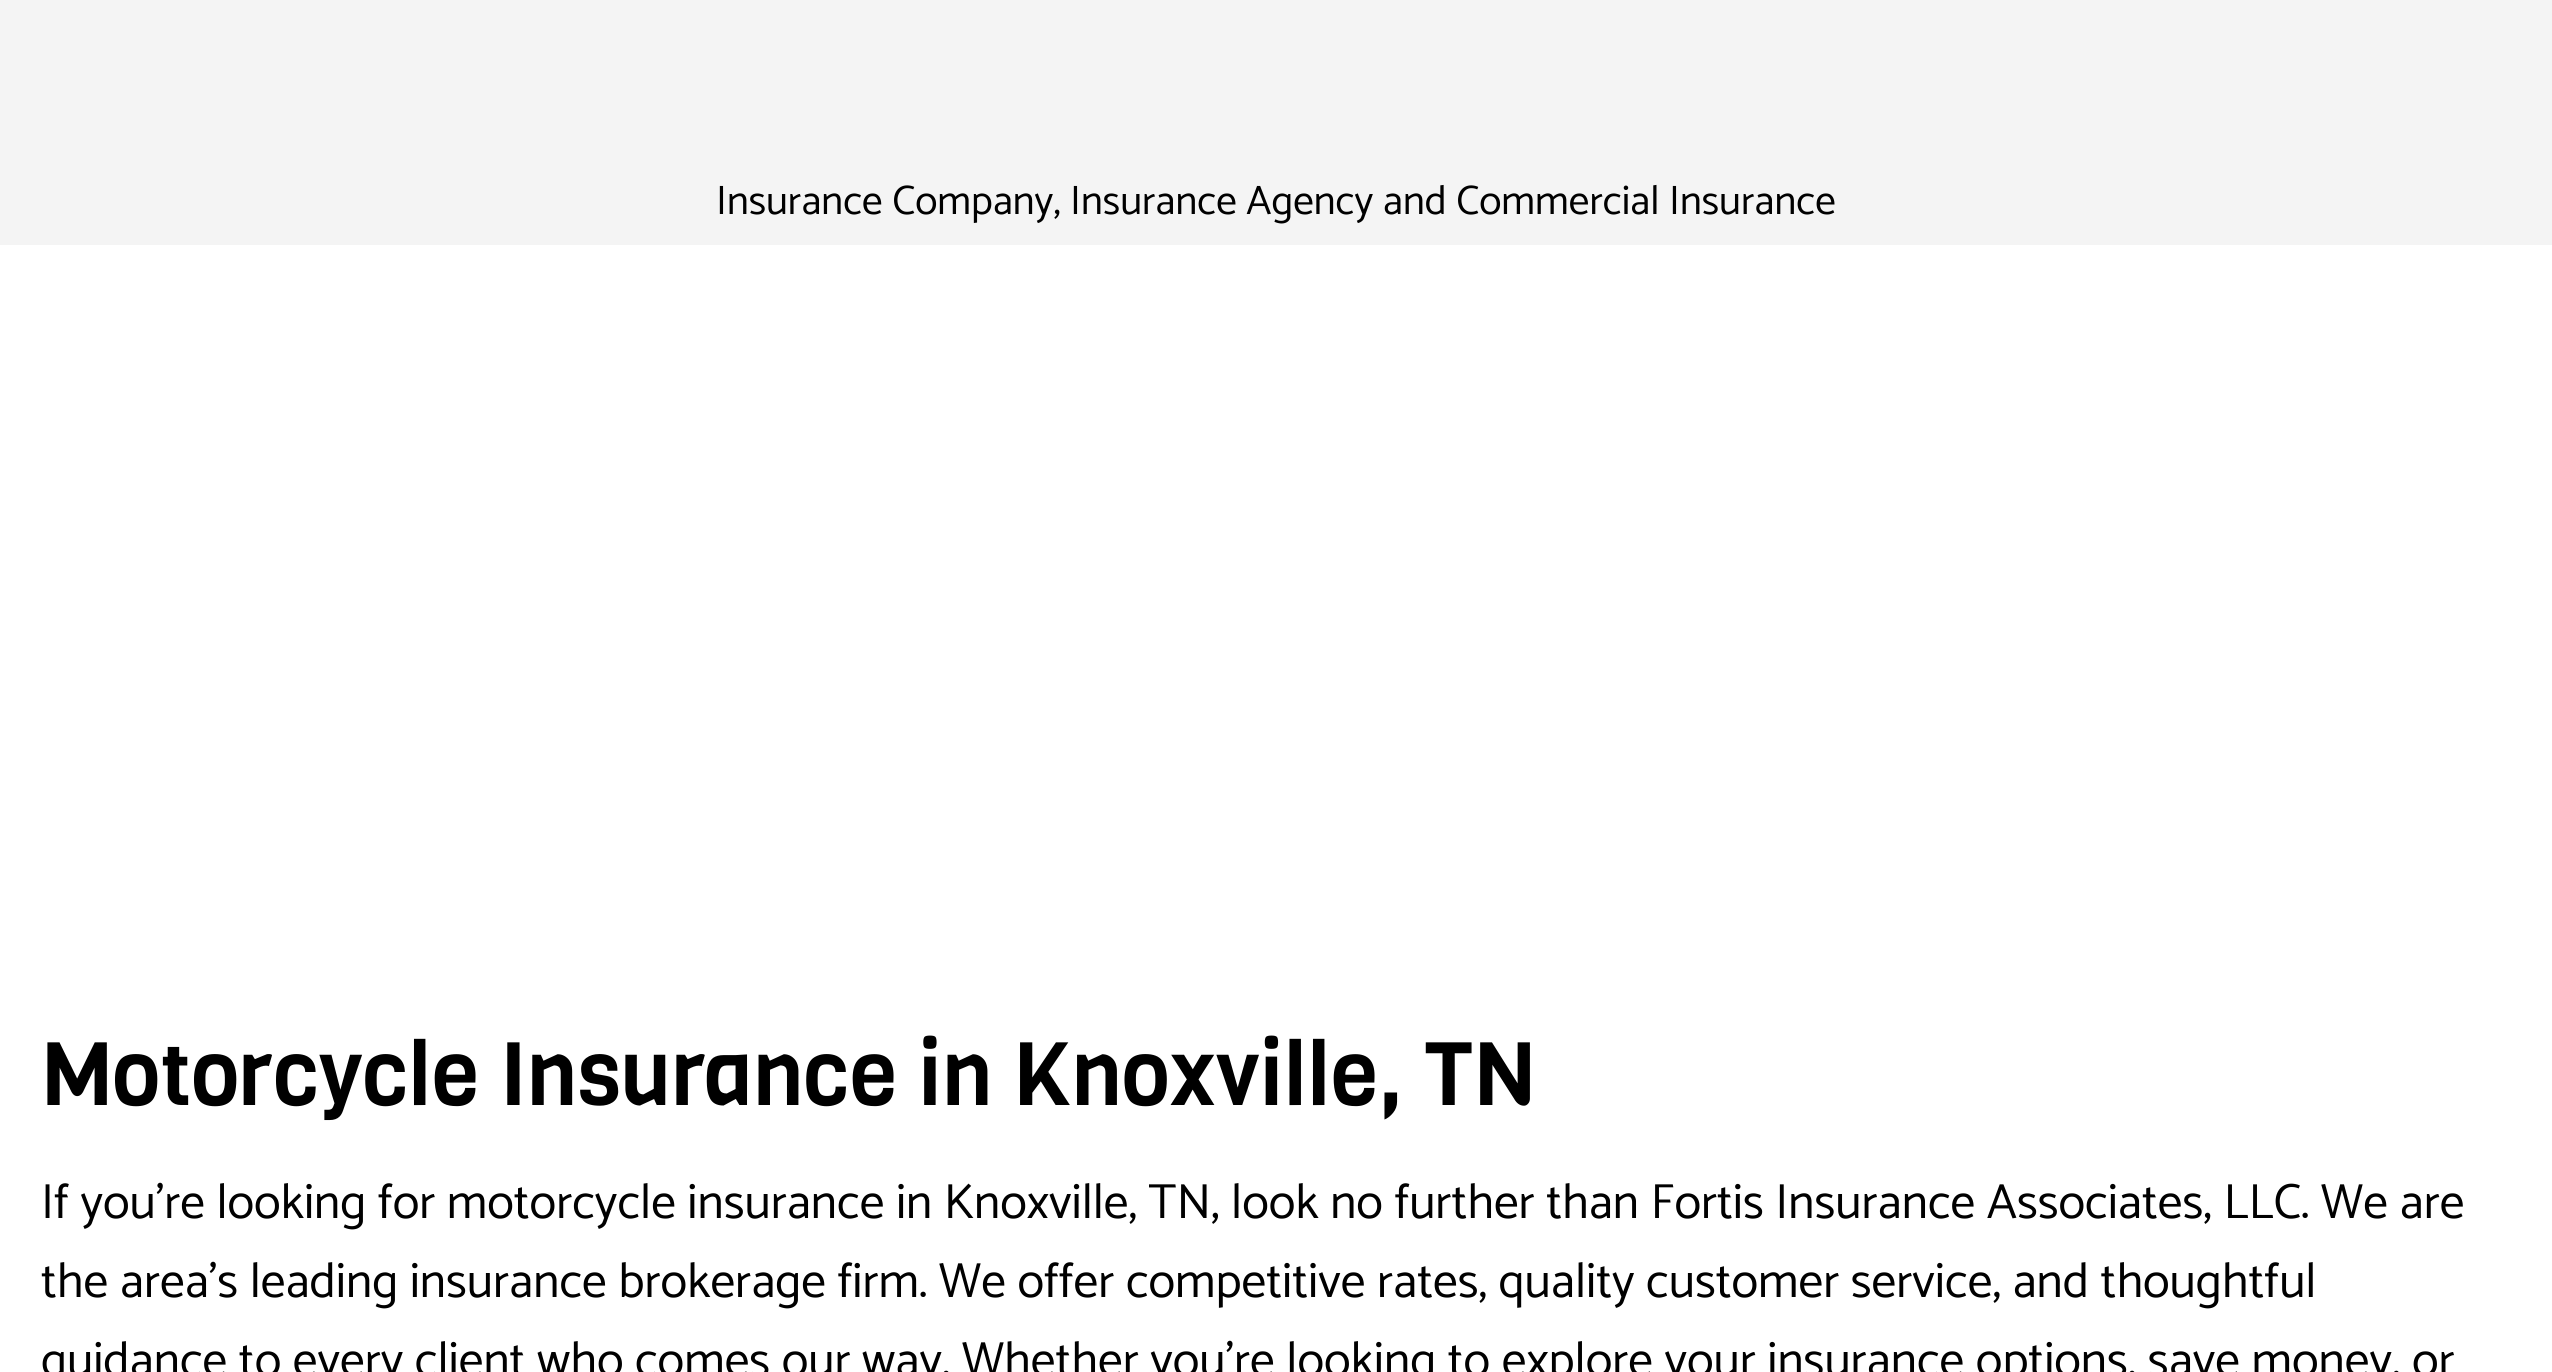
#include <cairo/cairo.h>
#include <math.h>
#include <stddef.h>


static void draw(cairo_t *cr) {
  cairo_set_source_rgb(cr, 1, 1, 1);
  cairo_paint(cr);
  cairo_set_source_rgb(cr, 244 / 255.0, 244 / 255.0, 244 / 255.0);
  cairo_rectangle(cr, 0, 0, 2552, 245);
  cairo_fill(cr);
  cairo_select_font_face(cr, "Catamaran Thin", CAIRO_FONT_SLANT_NORMAL, CAIRO_FONT_WEIGHT_NORMAL);
  cairo_set_font_size(cr, 41.25);
  cairo_set_source_rgb(cr, 0, 0, 0);
  cairo_move_to(cr, 716, 214);
  cairo_show_text(cr, "Insurance Company, Insurance Agency and Commercial Insurance");
  cairo_select_font_face(cr, "Viga", CAIRO_FONT_SLANT_NORMAL, CAIRO_FONT_WEIGHT_NORMAL);
  cairo_set_font_size(cr, 88);
  cairo_move_to(cr, 41, 1105);
  cairo_show_text(cr, "Motorcycle Insurance in Knoxville, TN");
  cairo_select_font_face(cr, "Catamaran Thin", CAIRO_FONT_SLANT_NORMAL, CAIRO_FONT_WEIGHT_NORMAL);
  cairo_set_font_size(cr, 49.5);
  cairo_move_to(cr, 41, 1218);
  cairo_show_text(cr, "If you’re looking for motorcycle insurance in Knoxville, TN, look no further than Fortis Insurance Associates, LLC. We are");
  cairo_move_to(cr, 41, 1297);
  cairo_show_text(cr, "the area’s leading insurance brokerage firm. We offer competitive rates, quality customer service, and thoughtful");
  cairo_move_to(cr, 41, 1376);
  cairo_show_text(cr, "guidance to every client who comes our way. Whether you’re looking to explore your insurance options, save money, or");
}

int main(void) {
  cairo_surface_t *surface = cairo_image_surface_create(CAIRO_FORMAT_RGB24, 2552, 1372);
  cairo_t *cr = cairo_create(surface);
  cairo_font_options_t *options = cairo_font_options_create();
  cairo_font_options_set_hint_metrics(options, CAIRO_HINT_METRICS_OFF);
  cairo_font_options_set_hint_style(options, CAIRO_HINT_STYLE_NONE);
  cairo_set_font_options(cr, options);
  cairo_set_miter_limit(cr, 4);
  draw(cr);
  cairo_surface_write_to_png(surface, "out.png");
  cairo_font_options_destroy(options);
  cairo_destroy(cr);
  cairo_surface_destroy(surface);
  return 0;
}
